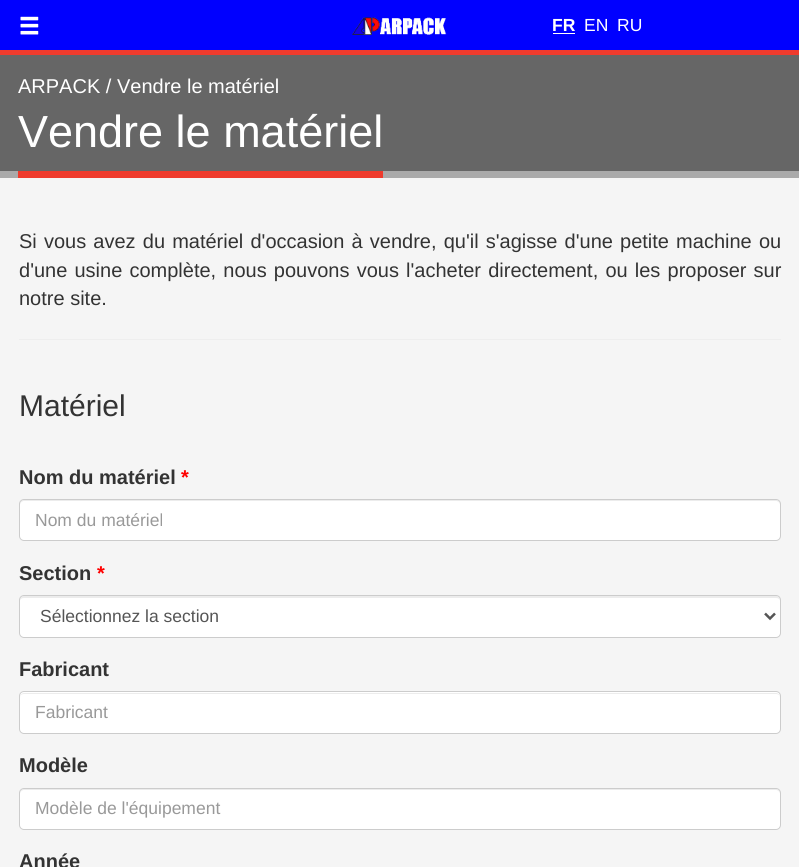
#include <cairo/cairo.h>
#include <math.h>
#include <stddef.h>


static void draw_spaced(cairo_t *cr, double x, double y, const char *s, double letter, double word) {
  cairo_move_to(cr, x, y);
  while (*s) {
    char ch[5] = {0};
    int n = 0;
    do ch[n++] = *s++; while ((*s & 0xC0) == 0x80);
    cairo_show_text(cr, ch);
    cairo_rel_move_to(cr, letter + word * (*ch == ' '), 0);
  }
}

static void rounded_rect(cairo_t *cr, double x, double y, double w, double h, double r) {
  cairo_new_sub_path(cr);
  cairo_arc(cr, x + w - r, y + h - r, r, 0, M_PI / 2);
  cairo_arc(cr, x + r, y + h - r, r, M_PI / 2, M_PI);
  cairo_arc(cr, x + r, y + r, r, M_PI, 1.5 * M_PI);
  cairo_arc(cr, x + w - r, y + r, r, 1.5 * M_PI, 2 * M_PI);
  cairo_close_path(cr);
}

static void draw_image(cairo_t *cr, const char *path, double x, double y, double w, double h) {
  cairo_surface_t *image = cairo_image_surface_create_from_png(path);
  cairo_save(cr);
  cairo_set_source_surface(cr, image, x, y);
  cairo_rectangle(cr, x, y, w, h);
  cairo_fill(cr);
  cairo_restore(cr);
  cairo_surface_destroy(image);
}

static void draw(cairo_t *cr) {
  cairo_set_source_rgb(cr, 0, 0, 1);
  cairo_paint(cr);
  draw_image(cr, "images/1.png", 20, 16, 19, 19);
  draw_image(cr, "images/2.png", 352, 17, 95, 18);
  cairo_set_source_rgb(cr, 1, 1, 1);
  cairo_rectangle(cr, 553, 33, 22, 1);
  cairo_fill(cr);
  cairo_set_source_rgb(cr, 239 / 255.0, 59 / 255.0, 45 / 255.0);
  cairo_rectangle(cr, 0, 50, 799, 5);
  cairo_fill(cr);
  cairo_set_source_rgb(cr, 102 / 255.0, 102 / 255.0, 102 / 255.0);
  cairo_rectangle(cr, 0, 55, 799, 116);
  cairo_fill(cr);
  cairo_set_source_rgb(cr, 170 / 255.0, 170 / 255.0, 170 / 255.0);
  cairo_rectangle(cr, 0, 171, 799, 7);
  cairo_fill(cr);
  cairo_set_source_rgb(cr, 239 / 255.0, 59 / 255.0, 45 / 255.0);
  cairo_rectangle(cr, 18, 171, 365, 7);
  cairo_fill(cr);
  cairo_set_source_rgb(cr, 245 / 255.0, 245 / 255.0, 245 / 255.0);
  cairo_rectangle(cr, 0, 178, 799, 689);
  cairo_fill(cr);
  cairo_set_source_rgb(cr, 238 / 255.0, 238 / 255.0, 238 / 255.0);
  cairo_rectangle(cr, 19, 339, 762, 1);
  cairo_fill(cr);
  cairo_set_source_rgb(cr, 1, 1, 1);
  rounded_rect(cr, 19, 499, 762, 42, 5);
  cairo_fill(cr);
  cairo_set_source_rgb(cr, 236 / 255.0, 236 / 255.0, 236 / 255.0);
  cairo_new_path(cr);
  cairo_move_to(cr, 24, 501);
  cairo_line_to(cr, 776, 501);
  cairo_curve_to(cr, 778, 501, 780, 503, 780, 505);
  cairo_line_to(cr, 780, 504);
  cairo_curve_to(cr, 780, 502, 778, 500, 776, 500);
  cairo_line_to(cr, 24, 500);
  cairo_curve_to(cr, 22, 500, 20, 502, 20, 504);
  cairo_line_to(cr, 20, 505);
  cairo_curve_to(cr, 20, 503, 22, 501, 24, 501);
  cairo_close_path(cr);
  cairo_fill(cr);
  rounded_rect(cr, 19.5, 499.5, 761, 41, 4.5);
  cairo_set_source_rgb(cr, 204 / 255.0, 204 / 255.0, 204 / 255.0);
  cairo_set_line_width(cr, 1);
  cairo_stroke(cr);
  cairo_set_source_rgb(cr, 1, 1, 1);
  rounded_rect(cr, 19, 595, 762, 43, 5);
  cairo_fill(cr);
  cairo_set_source_rgb(cr, 236 / 255.0, 236 / 255.0, 236 / 255.0);
  cairo_new_path(cr);
  cairo_move_to(cr, 24, 598);
  cairo_line_to(cr, 776, 598);
  cairo_curve_to(cr, 778, 598, 780, 599, 780, 601);
  cairo_line_to(cr, 780, 600);
  cairo_curve_to(cr, 780, 598, 778, 596, 776, 596);
  cairo_line_to(cr, 24, 596);
  cairo_curve_to(cr, 22, 596, 20, 598, 20, 600);
  cairo_line_to(cr, 20, 601);
  cairo_curve_to(cr, 20, 599, 22, 598, 24, 598);
  cairo_close_path(cr);
  cairo_fill(cr);
  rounded_rect(cr, 19.5, 595.5, 761, 42, 4.5);
  cairo_set_source_rgb(cr, 204 / 255.0, 204 / 255.0, 204 / 255.0);
  cairo_stroke(cr);
  cairo_new_path(cr);
  cairo_move_to(cr, 765, 613.5);
  cairo_line_to(cr, 770, 618.5);
  cairo_line_to(cr, 775, 613.5);
  cairo_set_source_rgb(cr, 85 / 255.0, 85 / 255.0, 85 / 255.0);
  cairo_set_line_width(cr, 2.5);
  cairo_stroke(cr);
  cairo_set_source_rgb(cr, 1, 1, 1);
  rounded_rect(cr, 19, 691, 762, 43, 5);
  cairo_fill(cr);
  cairo_set_source_rgb(cr, 236 / 255.0, 236 / 255.0, 236 / 255.0);
  cairo_new_path(cr);
  cairo_move_to(cr, 24, 694);
  cairo_line_to(cr, 776, 694);
  cairo_curve_to(cr, 778, 694, 780, 695, 780, 698);
  cairo_line_to(cr, 780, 697);
  cairo_curve_to(cr, 780, 695, 778, 693, 776, 693);
  cairo_line_to(cr, 24, 693);
  cairo_curve_to(cr, 22, 693, 20, 695, 20, 697);
  cairo_line_to(cr, 20, 698);
  cairo_curve_to(cr, 20, 695, 22, 694, 24, 694);
  cairo_close_path(cr);
  cairo_fill(cr);
  rounded_rect(cr, 19.5, 691.5, 761, 42, 4.5);
  cairo_set_source_rgb(cr, 204 / 255.0, 204 / 255.0, 204 / 255.0);
  cairo_set_line_width(cr, 1);
  cairo_stroke(cr);
  cairo_set_source_rgb(cr, 1, 1, 1);
  rounded_rect(cr, 19, 788, 762, 42, 5);
  cairo_fill(cr);
  cairo_set_source_rgb(cr, 236 / 255.0, 236 / 255.0, 236 / 255.0);
  cairo_new_path(cr);
  cairo_move_to(cr, 24, 790);
  cairo_line_to(cr, 776, 790);
  cairo_curve_to(cr, 778, 790, 780, 792, 780, 794);
  cairo_line_to(cr, 780, 793);
  cairo_curve_to(cr, 780, 791, 778, 789, 776, 789);
  cairo_line_to(cr, 24, 789);
  cairo_curve_to(cr, 22, 789, 20, 791, 20, 793);
  cairo_line_to(cr, 20, 794);
  cairo_curve_to(cr, 20, 792, 22, 790, 24, 790);
  cairo_close_path(cr);
  cairo_fill(cr);
  rounded_rect(cr, 19.5, 788.5, 761, 41, 4.5);
  cairo_set_source_rgb(cr, 204 / 255.0, 204 / 255.0, 204 / 255.0);
  cairo_stroke(cr);
  cairo_select_font_face(cr, "Liberation Sans", CAIRO_FONT_SLANT_NORMAL, CAIRO_FONT_WEIGHT_BOLD);
  cairo_set_font_size(cr, 17.5);
  cairo_set_source_rgb(cr, 1, 1, 1);
  cairo_move_to(cr, 552, 31);
  cairo_show_text(cr, "FR");
  cairo_select_font_face(cr, "Liberation Sans", CAIRO_FONT_SLANT_NORMAL, CAIRO_FONT_WEIGHT_NORMAL);
  cairo_move_to(cr, 584, 31);
  cairo_show_text(cr, "EN");
  cairo_move_to(cr, 617, 31);
  cairo_show_text(cr, "RU");
  cairo_set_font_size(cr, 20);
  cairo_move_to(cr, 18, 93);
  cairo_show_text(cr, "ARPACK / Vendre le matériel");
  cairo_set_font_size(cr, 45);
  cairo_move_to(cr, 18, 147);
  cairo_show_text(cr, "Vendre le matériel");
  cairo_set_font_size(cr, 20);
  cairo_set_source_rgb(cr, 51 / 255.0, 51 / 255.0, 51 / 255.0);
  draw_spaced(cr, 19, 248, "Si vous avez du matériel d'occasion à vendre, qu'il s'agisse d'une petite machine ou", 0, 1.6);
  draw_spaced(cr, 19, 277, "d'une usine complète, nous pouvons vous l'acheter directement, ou les proposer sur", 0, 1.6);
  cairo_move_to(cr, 19, 305);
  cairo_show_text(cr, "notre site.");
  cairo_set_font_size(cr, 30);
  cairo_move_to(cr, 19, 416);
  cairo_show_text(cr, "Matériel");
  cairo_select_font_face(cr, "Liberation Sans", CAIRO_FONT_SLANT_NORMAL, CAIRO_FONT_WEIGHT_BOLD);
  cairo_set_font_size(cr, 20);
  cairo_move_to(cr, 19, 484);
  cairo_show_text(cr, "Nom du matériel");
  cairo_set_source_rgb(cr, 1, 0, 0);
  cairo_move_to(cr, 181, 484);
  cairo_show_text(cr, "*");
  cairo_select_font_face(cr, "Liberation Sans", CAIRO_FONT_SLANT_NORMAL, CAIRO_FONT_WEIGHT_NORMAL);
  cairo_set_font_size(cr, 17.5);
  cairo_set_source_rgb(cr, 153 / 255.0, 153 / 255.0, 153 / 255.0);
  cairo_move_to(cr, 35, 526);
  cairo_show_text(cr, "Nom du matériel");
  cairo_select_font_face(cr, "Liberation Sans", CAIRO_FONT_SLANT_NORMAL, CAIRO_FONT_WEIGHT_BOLD);
  cairo_set_font_size(cr, 20);
  cairo_set_source_rgb(cr, 51 / 255.0, 51 / 255.0, 51 / 255.0);
  cairo_move_to(cr, 19, 580);
  cairo_show_text(cr, "Section");
  cairo_set_source_rgb(cr, 1, 0, 0);
  cairo_move_to(cr, 97, 580);
  cairo_show_text(cr, "*");
  cairo_select_font_face(cr, "Liberation Sans", CAIRO_FONT_SLANT_NORMAL, CAIRO_FONT_WEIGHT_NORMAL);
  cairo_set_font_size(cr, 17.5);
  cairo_set_source_rgb(cr, 85 / 255.0, 85 / 255.0, 85 / 255.0);
  cairo_move_to(cr, 40, 622);
  cairo_show_text(cr, "Sélectionnez la section");
  cairo_select_font_face(cr, "Liberation Sans", CAIRO_FONT_SLANT_NORMAL, CAIRO_FONT_WEIGHT_BOLD);
  cairo_set_font_size(cr, 20);
  cairo_set_source_rgb(cr, 51 / 255.0, 51 / 255.0, 51 / 255.0);
  cairo_move_to(cr, 19, 676);
  cairo_show_text(cr, "Fabricant");
  cairo_select_font_face(cr, "Liberation Sans", CAIRO_FONT_SLANT_NORMAL, CAIRO_FONT_WEIGHT_NORMAL);
  cairo_set_font_size(cr, 17.5);
  cairo_set_source_rgb(cr, 153 / 255.0, 153 / 255.0, 153 / 255.0);
  cairo_move_to(cr, 35, 718);
  cairo_show_text(cr, "Fabricant");
  cairo_select_font_face(cr, "Liberation Sans", CAIRO_FONT_SLANT_NORMAL, CAIRO_FONT_WEIGHT_BOLD);
  cairo_set_font_size(cr, 20);
  cairo_set_source_rgb(cr, 51 / 255.0, 51 / 255.0, 51 / 255.0);
  cairo_move_to(cr, 19, 772);
  cairo_show_text(cr, "Modèle");
  cairo_select_font_face(cr, "Liberation Sans", CAIRO_FONT_SLANT_NORMAL, CAIRO_FONT_WEIGHT_NORMAL);
  cairo_set_font_size(cr, 17.5);
  cairo_set_source_rgb(cr, 153 / 255.0, 153 / 255.0, 153 / 255.0);
  cairo_move_to(cr, 35, 814);
  cairo_show_text(cr, "Modèle de l'équipement");
  cairo_select_font_face(cr, "Liberation Sans", CAIRO_FONT_SLANT_NORMAL, CAIRO_FONT_WEIGHT_BOLD);
  cairo_set_font_size(cr, 20);
  cairo_set_source_rgb(cr, 51 / 255.0, 51 / 255.0, 51 / 255.0);
  cairo_move_to(cr, 19, 868);
  cairo_show_text(cr, "Année");
}

int main(void) {
  cairo_surface_t *surface = cairo_image_surface_create(CAIRO_FORMAT_RGB24, 799, 867);
  cairo_t *cr = cairo_create(surface);
  cairo_font_options_t *options = cairo_font_options_create();
  cairo_font_options_set_hint_metrics(options, CAIRO_HINT_METRICS_OFF);
  cairo_font_options_set_hint_style(options, CAIRO_HINT_STYLE_NONE);
  cairo_set_font_options(cr, options);
  cairo_set_miter_limit(cr, 4);
  draw(cr);
  cairo_surface_write_to_png(surface, "out.png");
  cairo_font_options_destroy(options);
  cairo_destroy(cr);
  cairo_surface_destroy(surface);
  return 0;
}
